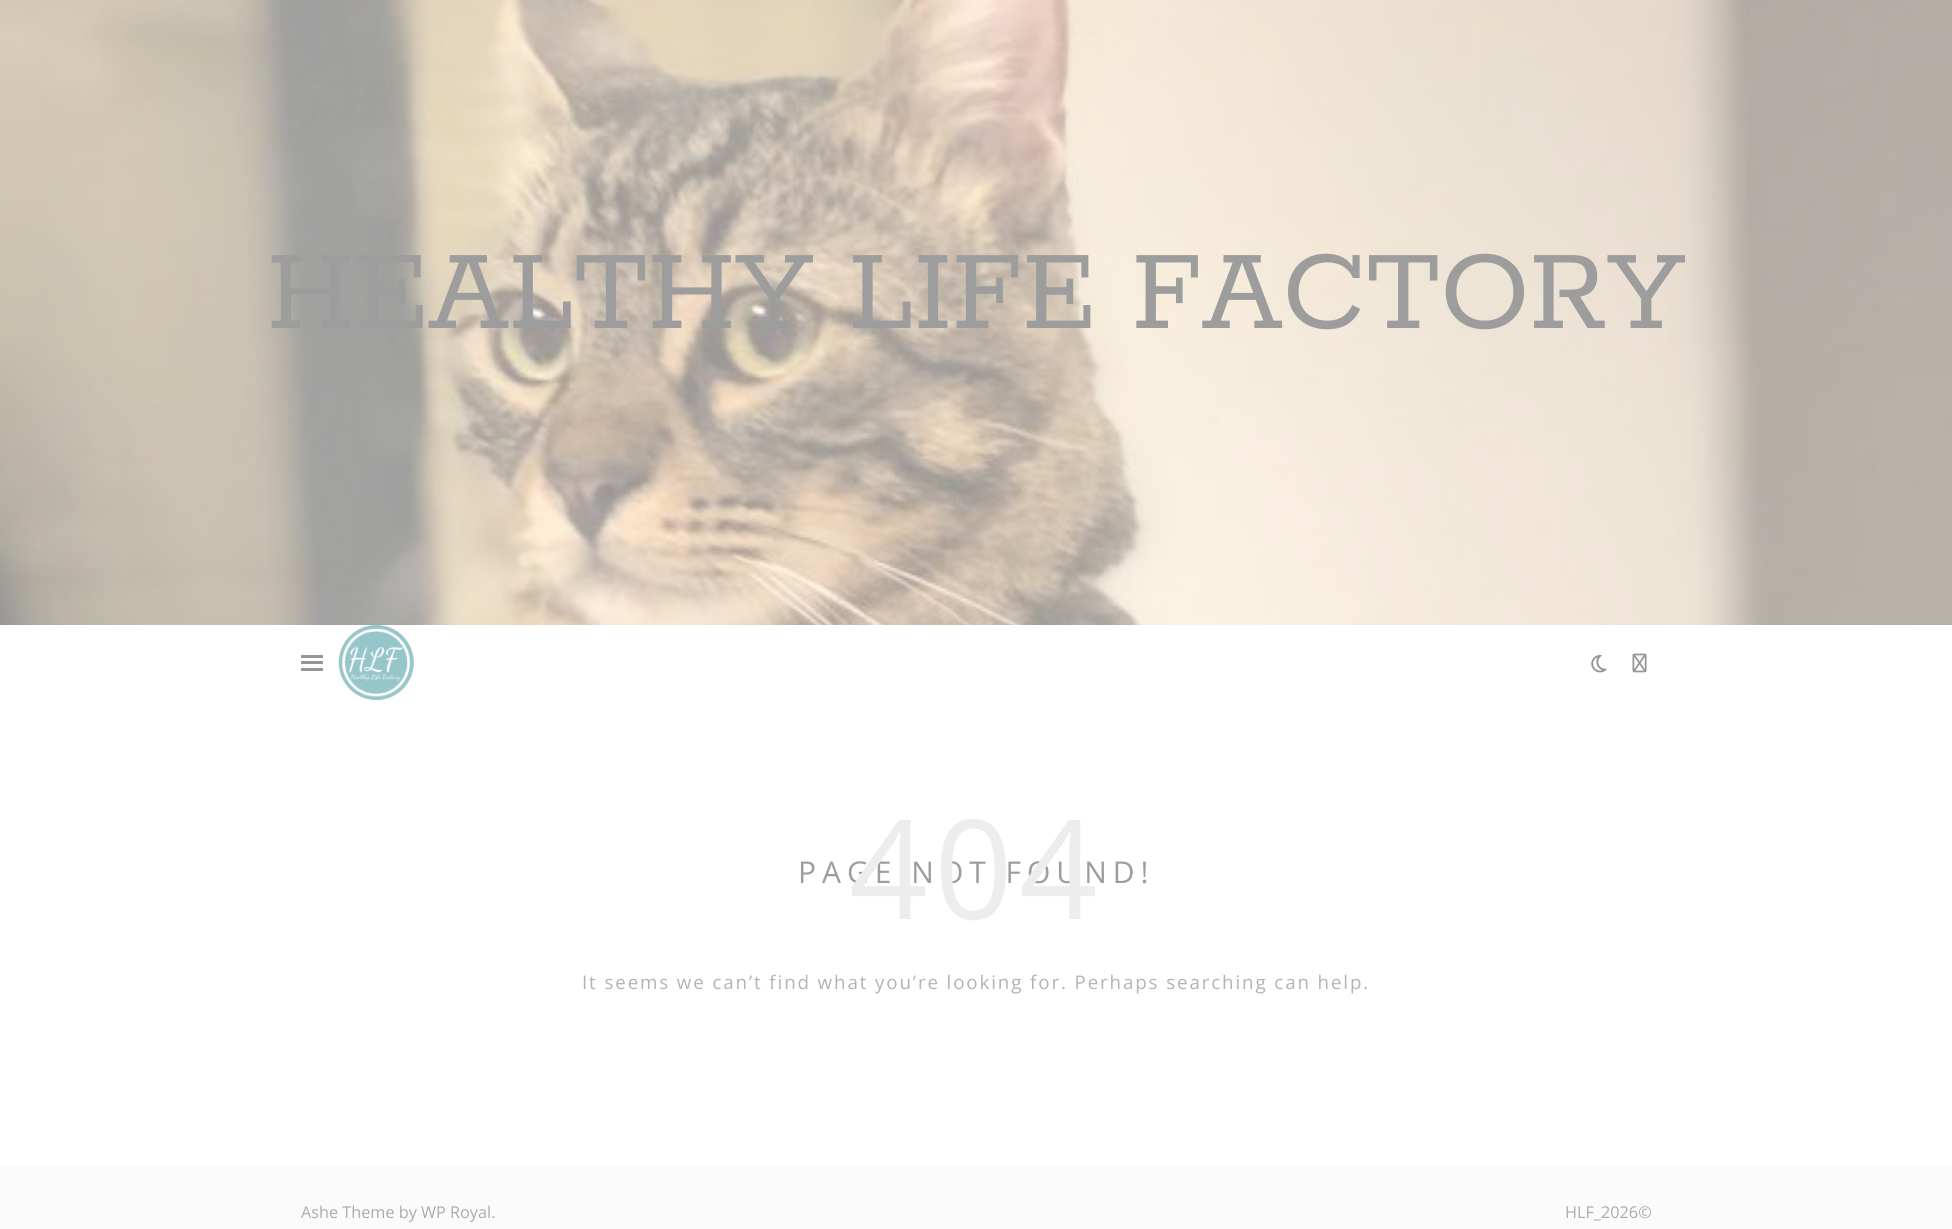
#include <cairo/cairo.h>
#include <math.h>
#include <stddef.h>


static void draw_spaced(cairo_t *cr, double x, double y, const char *s, double letter, double word) {
  cairo_move_to(cr, x, y);
  while (*s) {
    char ch[5] = {0};
    int n = 0;
    do ch[n++] = *s++; while ((*s & 0xC0) == 0x80);
    cairo_show_text(cr, ch);
    cairo_rel_move_to(cr, letter + word * (*ch == ' '), 0);
  }
}

static void draw_image(cairo_t *cr, const char *path, double x, double y, double w, double h) {
  cairo_surface_t *image = cairo_image_surface_create_from_png(path);
  cairo_save(cr);
  cairo_set_source_surface(cr, image, x, y);
  cairo_rectangle(cr, x, y, w, h);
  cairo_fill(cr);
  cairo_restore(cr);
  cairo_surface_destroy(image);
}

static void draw(cairo_t *cr) {
  cairo_set_source_rgb(cr, 1, 1, 1);
  cairo_paint(cr);
  draw_image(cr, "images/1.png", 0, 0, 1952, 625);
  cairo_set_source_rgb(cr, 150 / 255.0, 150 / 255.0, 150 / 255.0);
  cairo_rectangle(cr, 301, 655, 22, 3);
  cairo_fill(cr);
  cairo_rectangle(cr, 301, 661, 22, 3);
  cairo_fill(cr);
  cairo_rectangle(cr, 301, 668, 22, 3);
  cairo_fill(cr);
  draw_image(cr, "images/2.png", 338, 625, 76, 75);
  draw_image(cr, "images/3.png", 1591, 655, 16, 18);
  draw_image(cr, "images/4.png", 1632, 653, 15, 20);
  cairo_set_source_rgb(cr, 251 / 255.0, 251 / 255.0, 251 / 255.0);
  cairo_rectangle(cr, 0, 1166, 1952, 63);
  cairo_fill(cr);
  cairo_select_font_face(cr, "Rokkitt SemiBold", CAIRO_FONT_SLANT_NORMAL, CAIRO_FONT_WEIGHT_NORMAL);
  cairo_set_font_size(cr, 125);
  cairo_set_source_rgb(cr, 157 / 255.0, 157 / 255.0, 157 / 255.0);
  cairo_move_to(cr, 267, 328);
  cairo_show_text(cr, "HEALTHY LIFE FACTORY");
  cairo_select_font_face(cr, "Open Sans", CAIRO_FONT_SLANT_NORMAL, CAIRO_FONT_WEIGHT_NORMAL);
  cairo_set_font_size(cr, 30);
  draw_spaced(cr, 798, 883, "PAGE NOT FOUND!", 6, 0);
  cairo_set_font_size(cr, 138);
  cairo_set_source_rgb(cr, 237 / 255.0, 237 / 255.0, 237 / 255.0);
  draw_spaced(cr, 849, 919, "404", 6, 0);
  cairo_set_font_size(cr, 18.75);
  cairo_set_source_rgb(cr, 179 / 255.0, 179 / 255.0, 179 / 255.0);
  draw_spaced(cr, 582, 989, "It seems we can’t find what you’re looking for. Perhaps searching can help.", 1.88, 0);
  cairo_set_font_size(cr, 16.25);
  cairo_set_source_rgb(cr, 171 / 255.0, 171 / 255.0, 171 / 255.0);
  cairo_move_to(cr, 301, 1218);
  cairo_show_text(cr, "Ashe Theme by WP Royal.");
  cairo_move_to(cr, 1565, 1218);
  cairo_show_text(cr, "HLF_2026©");
}

int main(void) {
  cairo_surface_t *surface = cairo_image_surface_create(CAIRO_FORMAT_RGB24, 1952, 1229);
  cairo_t *cr = cairo_create(surface);
  cairo_font_options_t *options = cairo_font_options_create();
  cairo_font_options_set_hint_metrics(options, CAIRO_HINT_METRICS_OFF);
  cairo_font_options_set_hint_style(options, CAIRO_HINT_STYLE_NONE);
  cairo_set_font_options(cr, options);
  cairo_set_miter_limit(cr, 4);
  draw(cr);
  cairo_surface_write_to_png(surface, "out.png");
  cairo_font_options_destroy(options);
  cairo_destroy(cr);
  cairo_surface_destroy(surface);
  return 0;
}
